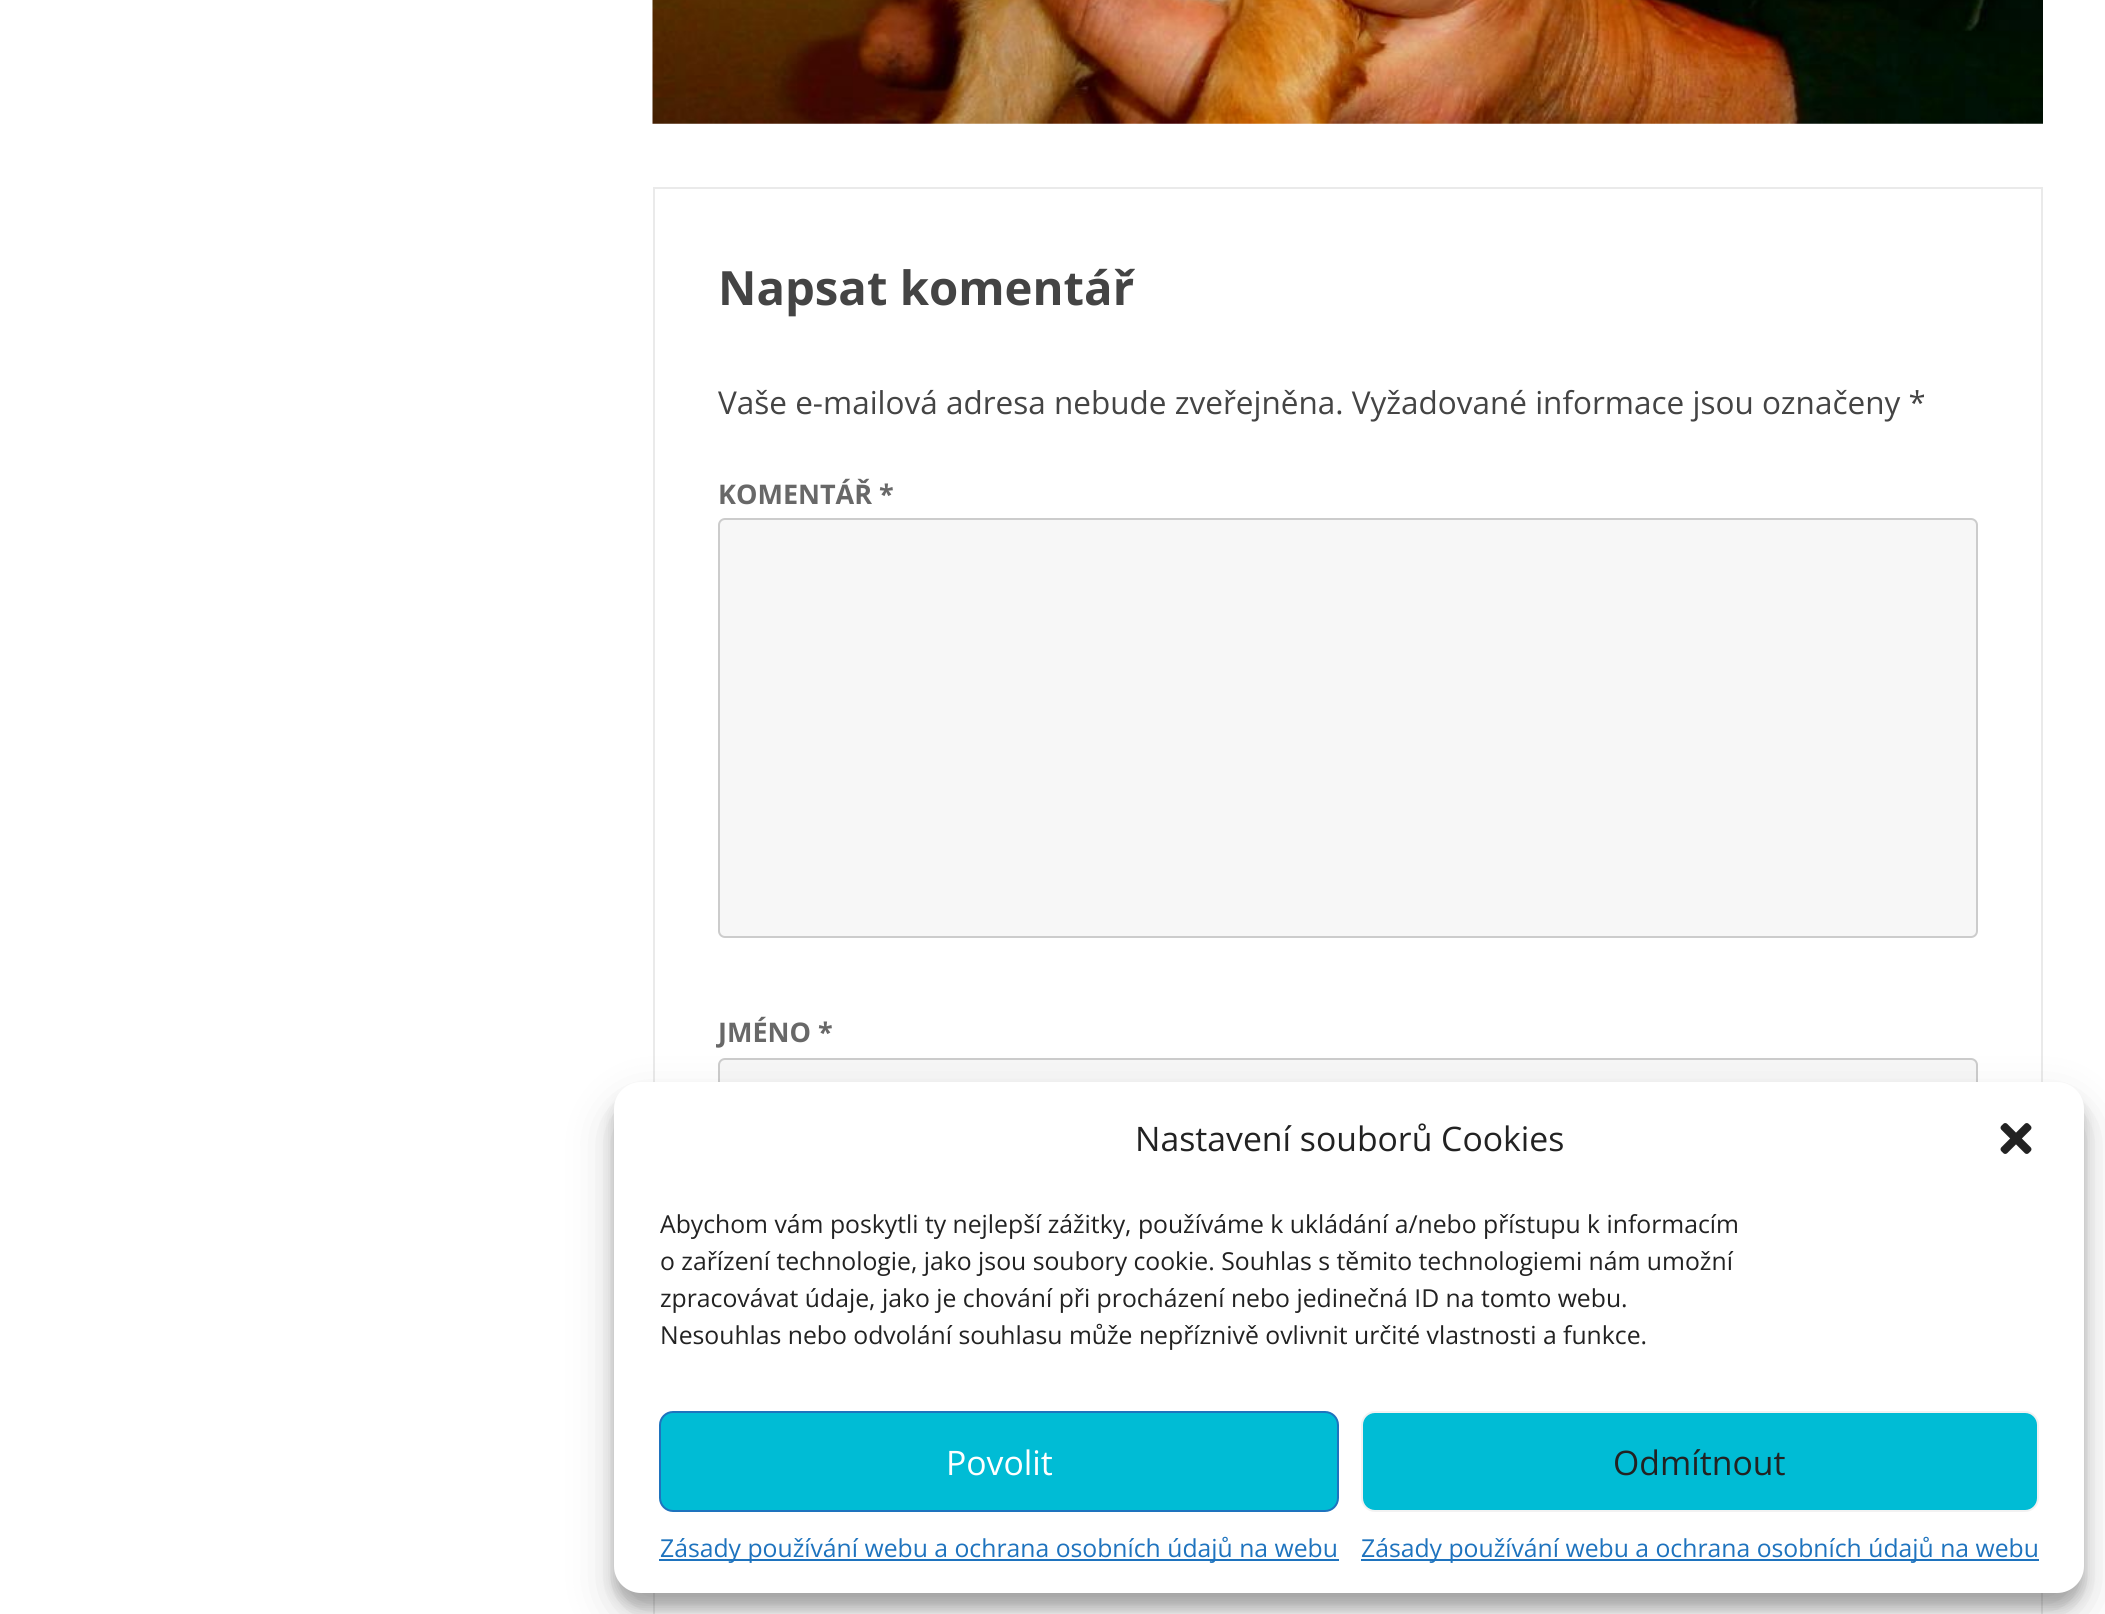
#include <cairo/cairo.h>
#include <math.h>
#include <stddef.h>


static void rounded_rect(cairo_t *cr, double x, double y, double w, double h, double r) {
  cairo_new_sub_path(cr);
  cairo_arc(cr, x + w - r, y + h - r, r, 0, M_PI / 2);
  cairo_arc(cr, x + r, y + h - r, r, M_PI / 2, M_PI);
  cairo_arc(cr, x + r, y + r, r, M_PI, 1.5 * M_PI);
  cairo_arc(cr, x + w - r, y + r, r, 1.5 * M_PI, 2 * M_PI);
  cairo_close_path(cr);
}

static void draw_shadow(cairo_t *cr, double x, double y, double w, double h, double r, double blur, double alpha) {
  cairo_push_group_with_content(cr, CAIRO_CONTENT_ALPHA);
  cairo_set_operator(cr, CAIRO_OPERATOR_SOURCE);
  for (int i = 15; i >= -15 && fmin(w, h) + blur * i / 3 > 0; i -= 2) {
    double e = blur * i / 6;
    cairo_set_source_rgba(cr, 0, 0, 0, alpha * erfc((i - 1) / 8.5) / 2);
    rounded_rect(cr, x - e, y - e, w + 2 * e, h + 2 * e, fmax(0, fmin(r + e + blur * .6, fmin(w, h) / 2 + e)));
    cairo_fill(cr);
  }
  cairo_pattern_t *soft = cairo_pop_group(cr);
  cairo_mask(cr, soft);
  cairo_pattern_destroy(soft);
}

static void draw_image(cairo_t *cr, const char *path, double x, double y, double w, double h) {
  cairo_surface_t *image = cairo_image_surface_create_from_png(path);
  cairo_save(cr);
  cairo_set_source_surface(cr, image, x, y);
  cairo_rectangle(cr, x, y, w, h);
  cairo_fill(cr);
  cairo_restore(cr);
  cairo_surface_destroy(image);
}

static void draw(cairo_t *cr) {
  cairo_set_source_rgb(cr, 1, 1, 1);
  cairo_paint(cr);
  draw_image(cr, "images/1.png", 652, 0, 1391, 124);
  cairo_rectangle(cr, 654, 188, 1388, 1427);
  cairo_set_source_rgb(cr, 234 / 255.0, 234 / 255.0, 234 / 255.0);
  cairo_stroke(cr);
  cairo_set_source_rgb(cr, 247 / 255.0, 247 / 255.0, 247 / 255.0);
  rounded_rect(cr, 719, 519, 1258, 418, 6);
  cairo_fill_preserve(cr);
  cairo_set_source_rgb(cr, 204 / 255.0, 204 / 255.0, 204 / 255.0);
  cairo_stroke(cr);
  cairo_set_source_rgb(cr, 247 / 255.0, 247 / 255.0, 247 / 255.0);
  rounded_rect(cr, 719, 1059, 1258, 92, 6);
  cairo_fill_preserve(cr);
  cairo_set_source_rgb(cr, 204 / 255.0, 204 / 255.0, 204 / 255.0);
  cairo_stroke(cr);
  cairo_set_source_rgb(cr, 0, 0, 0);
  draw_shadow(cr, 614, 1096, 1470, 511, 27, 7, 0.23);
  draw_shadow(cr, 614, 1105, 1470, 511, 27, 22.5, 0.19);
  cairo_set_source_rgb(cr, 1, 1, 1);
  rounded_rect(cr, 614, 1082, 1470, 511, 27);
  cairo_fill(cr);
  draw_image(cr, "images/2.png", 2000, 1123, 32, 31);
  cairo_set_source_rgb(cr, 0, 188 / 255.0, 213 / 255.0);
  rounded_rect(cr, 660, 1412, 678, 99, 13);
  cairo_fill_preserve(cr);
  cairo_set_source_rgb(cr, 30 / 255.0, 115 / 255.0, 190 / 255.0);
  cairo_stroke(cr);
  cairo_set_source_rgb(cr, 0, 188 / 255.0, 213 / 255.0);
  rounded_rect(cr, 1362, 1412, 676, 99, 13);
  cairo_fill_preserve(cr);
  cairo_set_source_rgb(cr, 242 / 255.0, 242 / 255.0, 242 / 255.0);
  cairo_stroke(cr);
  cairo_set_source_rgb(cr, 30 / 255.0, 115 / 255.0, 190 / 255.0);
  cairo_rectangle(cr, 659, 1559, 680, 2);
  cairo_fill(cr);
  cairo_rectangle(cr, 1361, 1559, 678, 2);
  cairo_fill(cr);
  cairo_select_font_face(cr, "Open Sans", CAIRO_FONT_SLANT_NORMAL, CAIRO_FONT_WEIGHT_BOLD);
  cairo_set_font_size(cr, 47.25);
  cairo_set_source_rgb(cr, 68 / 255.0, 68 / 255.0, 68 / 255.0);
  cairo_move_to(cr, 718, 305);
  cairo_show_text(cr, "Napsat komentář");
  cairo_select_font_face(cr, "Open Sans", CAIRO_FONT_SLANT_NORMAL, CAIRO_FONT_WEIGHT_NORMAL);
  cairo_set_font_size(cr, 31.5);
  cairo_move_to(cr, 718, 414);
  cairo_show_text(cr, "Vaše e-mailová adresa nebude zveřejněna. Vyžadované informace jsou označeny *");
  cairo_select_font_face(cr, "Open Sans", CAIRO_FONT_SLANT_NORMAL, CAIRO_FONT_WEIGHT_BOLD);
  cairo_set_font_size(cr, 27);
  cairo_set_source_rgb(cr, 104 / 255.0, 104 / 255.0, 104 / 255.0);
  cairo_move_to(cr, 718, 504);
  cairo_show_text(cr, "KOMENTÁŘ *");
  cairo_move_to(cr, 718, 1042);
  cairo_show_text(cr, "JMÉNO *");
  cairo_select_font_face(cr, "Open Sans", CAIRO_FONT_SLANT_NORMAL, CAIRO_FONT_WEIGHT_NORMAL);
  cairo_set_font_size(cr, 33.75);
  cairo_set_source_rgb(cr, 34 / 255.0, 34 / 255.0, 34 / 255.0);
  cairo_move_to(cr, 1135, 1151);
  cairo_show_text(cr, "Nastavení souborů Cookies");
  cairo_set_font_size(cr, 24.75);
  cairo_move_to(cr, 660, 1233);
  cairo_show_text(cr, "Abychom vám poskytli ty nejlepší zážitky, používáme k ukládání a/nebo přístupu k informacím");
  cairo_move_to(cr, 660, 1270);
  cairo_show_text(cr, "o zařízení technologie, jako jsou soubory cookie. Souhlas s těmito technologiemi nám umožní");
  cairo_move_to(cr, 660, 1307);
  cairo_show_text(cr, "zpracovávat údaje, jako je chování při procházení nebo jedinečná ID na tomto webu.");
  cairo_move_to(cr, 660, 1344);
  cairo_show_text(cr, "Nesouhlas nebo odvolání souhlasu může nepříznivě ovlivnit určité vlastnosti a funkce.");
  cairo_set_font_size(cr, 33.75);
  cairo_set_source_rgb(cr, 1, 1, 1);
  cairo_move_to(cr, 946, 1475);
  cairo_show_text(cr, "Povolit");
  cairo_set_source_rgb(cr, 34 / 255.0, 34 / 255.0, 34 / 255.0);
  cairo_move_to(cr, 1613, 1475);
  cairo_show_text(cr, "Odmítnout");
  cairo_set_font_size(cr, 24.75);
  cairo_set_source_rgb(cr, 30 / 255.0, 115 / 255.0, 190 / 255.0);
  cairo_move_to(cr, 660, 1557);
  cairo_show_text(cr, "Zásady používání webu a ochrana osobních údajů na webu");
  cairo_move_to(cr, 1361, 1557);
  cairo_show_text(cr, "Zásady používání webu a ochrana osobních údajů na webu");
}

int main(void) {
  cairo_surface_t *surface = cairo_image_surface_create(CAIRO_FORMAT_RGB24, 2105, 1614);
  cairo_t *cr = cairo_create(surface);
  cairo_font_options_t *options = cairo_font_options_create();
  cairo_font_options_set_hint_metrics(options, CAIRO_HINT_METRICS_OFF);
  cairo_font_options_set_hint_style(options, CAIRO_HINT_STYLE_NONE);
  cairo_set_font_options(cr, options);
  cairo_set_miter_limit(cr, 4);
  draw(cr);
  cairo_surface_write_to_png(surface, "out.png");
  cairo_font_options_destroy(options);
  cairo_destroy(cr);
  cairo_surface_destroy(surface);
  return 0;
}
